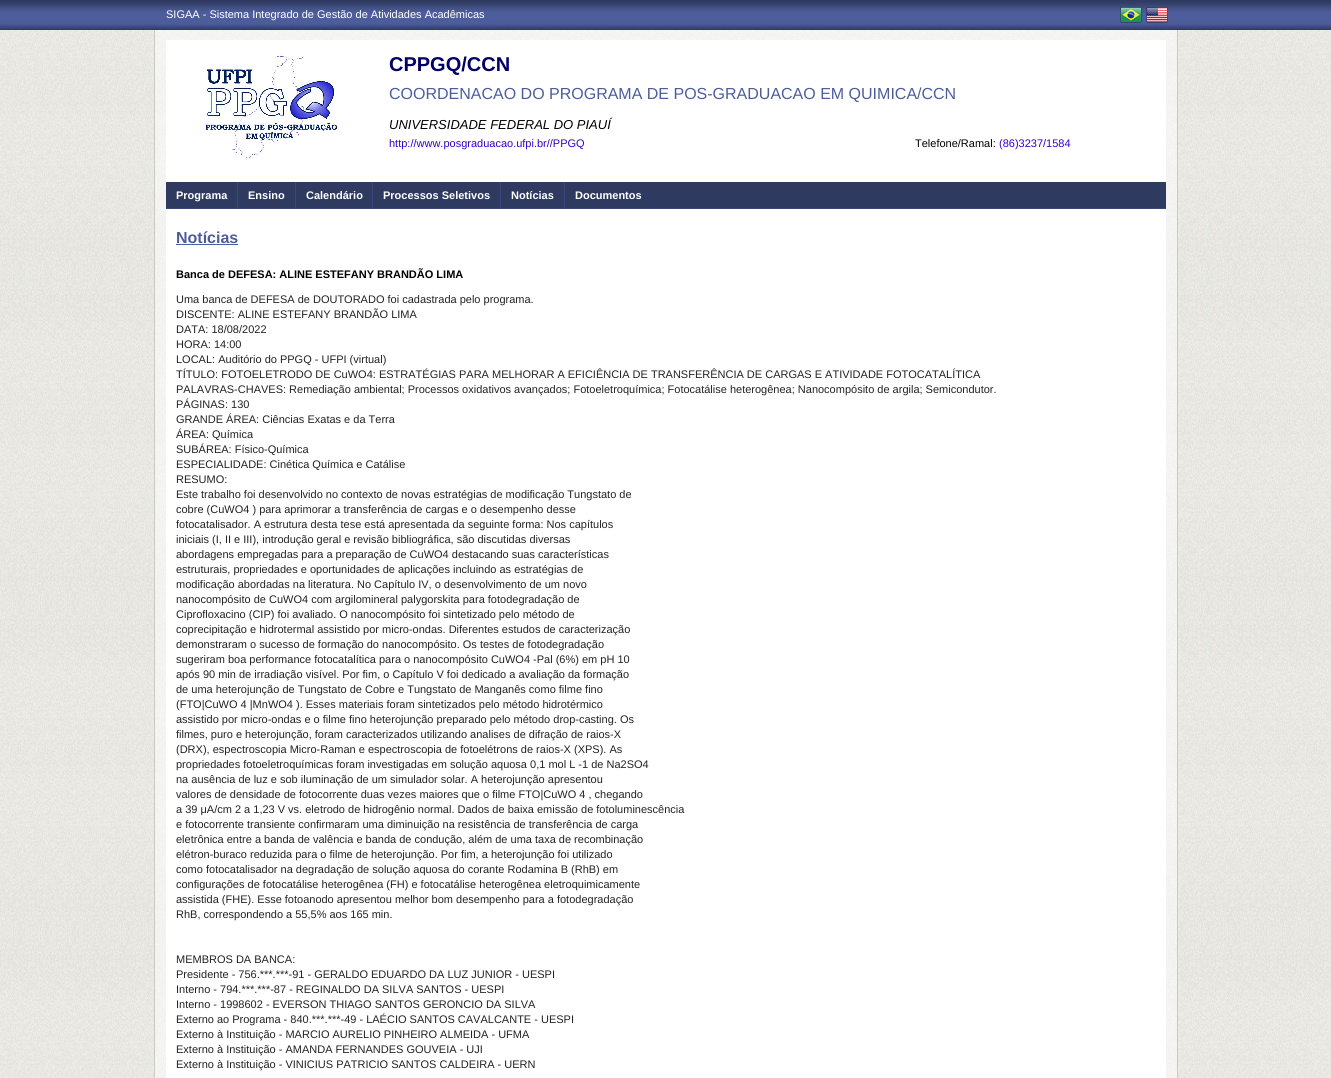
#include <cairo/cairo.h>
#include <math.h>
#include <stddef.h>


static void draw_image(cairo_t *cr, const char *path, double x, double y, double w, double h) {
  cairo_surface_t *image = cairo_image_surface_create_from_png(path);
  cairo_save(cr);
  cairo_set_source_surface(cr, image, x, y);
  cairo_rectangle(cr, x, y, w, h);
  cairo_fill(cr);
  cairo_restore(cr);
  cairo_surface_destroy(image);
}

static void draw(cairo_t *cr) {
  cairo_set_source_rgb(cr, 1, 1, 1);
  cairo_paint(cr);
  draw_image(cr, "images/1.png", 0, 30, 1331, 1048);
  draw_image(cr, "images/2.png", 0, 0, 1331, 30);
  draw_image(cr, "images/3.png", 1120, 7, 22, 16);
  draw_image(cr, "images/4.png", 1146, 7, 22, 16);
  draw_image(cr, "images/5.png", 155, 30, 1022, 1048);
  cairo_set_source_rgb(cr, 202 / 255.0, 202 / 255.0, 199 / 255.0);
  cairo_rectangle(cr, 1177, 30, 1, 1048);
  cairo_fill(cr);
  cairo_rectangle(cr, 154, 30, 1, 1048);
  cairo_fill(cr);
  cairo_set_source_rgb(cr, 1, 1, 1);
  cairo_rectangle(cr, 166, 40, 1000, 1038);
  cairo_fill(cr);
  draw_image(cr, "images/6.png", 205, 53, 133, 107);
  cairo_set_source_rgb(cr, 47 / 255.0, 58 / 255.0, 96 / 255.0);
  cairo_rectangle(cr, 166, 182, 1000, 26);
  cairo_fill(cr);
  cairo_set_source_rgb(cr, 59 / 255.0, 72 / 255.0, 120 / 255.0);
  cairo_rectangle(cr, 166, 208, 1000, 1);
  cairo_fill(cr);
  cairo_rectangle(cr, 237, 182, 1, 27);
  cairo_fill(cr);
  cairo_rectangle(cr, 295, 182, 1, 27);
  cairo_fill(cr);
  cairo_rectangle(cr, 372, 182, 1, 27);
  cairo_fill(cr);
  cairo_rectangle(cr, 500, 182, 1, 27);
  cairo_fill(cr);
  cairo_rectangle(cr, 564, 182, 1, 27);
  cairo_fill(cr);
  cairo_set_source_rgb(cr, 77 / 255.0, 93 / 255.0, 156 / 255.0);
  cairo_rectangle(cr, 176, 244, 62, 1);
  cairo_fill(cr);
  cairo_select_font_face(cr, "Liberation Sans", CAIRO_FONT_SLANT_NORMAL, CAIRO_FONT_WEIGHT_NORMAL);
  cairo_set_font_size(cr, 11);
  cairo_set_source_rgb(cr, 1, 1, 1);
  cairo_move_to(cr, 166, 18);
  cairo_show_text(cr, "SIGAA - Sistema Integrado de Gestão de Atividades Acadêmicas");
  cairo_select_font_face(cr, "Liberation Sans", CAIRO_FONT_SLANT_NORMAL, CAIRO_FONT_WEIGHT_BOLD);
  cairo_set_font_size(cr, 20);
  cairo_set_source_rgb(cr, 0, 0, 102 / 255.0);
  cairo_move_to(cr, 389, 71);
  cairo_show_text(cr, "CPPGQ/CCN");
  cairo_select_font_face(cr, "Liberation Sans", CAIRO_FONT_SLANT_NORMAL, CAIRO_FONT_WEIGHT_NORMAL);
  cairo_set_font_size(cr, 16);
  cairo_set_source_rgb(cr, 77 / 255.0, 93 / 255.0, 156 / 255.0);
  cairo_move_to(cr, 389, 99);
  cairo_show_text(cr, "COORDENACAO DO PROGRAMA DE POS-GRADUACAO EM QUIMICA/CCN");
  cairo_select_font_face(cr, "Liberation Sans", CAIRO_FONT_SLANT_ITALIC, CAIRO_FONT_WEIGHT_NORMAL);
  cairo_set_font_size(cr, 13);
  cairo_set_source_rgb(cr, 0, 0, 0);
  cairo_move_to(cr, 389, 129);
  cairo_show_text(cr, "UNIVERSIDADE FEDERAL DO PIAUÍ");
  cairo_select_font_face(cr, "Liberation Sans", CAIRO_FONT_SLANT_NORMAL, CAIRO_FONT_WEIGHT_NORMAL);
  cairo_set_font_size(cr, 11);
  cairo_set_source_rgb(cr, 51 / 255.0, 0, 204 / 255.0);
  cairo_move_to(cr, 389, 147);
  cairo_show_text(cr, "http://www.posgraduacao.ufpi.br//PPGQ");
  cairo_set_source_rgb(cr, 0, 0, 0);
  cairo_move_to(cr, 915, 147);
  cairo_show_text(cr, "Telefone/Ramal:");
  cairo_set_source_rgb(cr, 51 / 255.0, 0, 204 / 255.0);
  cairo_move_to(cr, 999, 147);
  cairo_show_text(cr, "(86)3237/1584");
  cairo_select_font_face(cr, "Liberation Sans", CAIRO_FONT_SLANT_NORMAL, CAIRO_FONT_WEIGHT_BOLD);
  cairo_set_source_rgb(cr, 1, 1, 1);
  cairo_move_to(cr, 176, 199);
  cairo_show_text(cr, "Programa");
  cairo_move_to(cr, 248, 199);
  cairo_show_text(cr, "Ensino");
  cairo_move_to(cr, 306, 199);
  cairo_show_text(cr, "Calendário");
  cairo_move_to(cr, 383, 199);
  cairo_show_text(cr, "Processos Seletivos");
  cairo_move_to(cr, 511, 199);
  cairo_show_text(cr, "Notícias");
  cairo_move_to(cr, 575, 199);
  cairo_show_text(cr, "Documentos");
  cairo_set_font_size(cr, 16);
  cairo_set_source_rgb(cr, 77 / 255.0, 93 / 255.0, 156 / 255.0);
  cairo_move_to(cr, 176, 243);
  cairo_show_text(cr, "Notícias");
  cairo_set_font_size(cr, 11);
  cairo_set_source_rgb(cr, 0, 0, 0);
  cairo_move_to(cr, 176, 278);
  cairo_show_text(cr, "Banca de DEFESA: ALINE ESTEFANY BRANDÃO LIMA");
  cairo_select_font_face(cr, "Liberation Sans", CAIRO_FONT_SLANT_NORMAL, CAIRO_FONT_WEIGHT_NORMAL);
  cairo_set_source_rgb(cr, 34 / 255.0, 34 / 255.0, 34 / 255.0);
  cairo_move_to(cr, 176, 303);
  cairo_show_text(cr, "Uma banca de DEFESA de DOUTORADO foi cadastrada pelo programa.");
  cairo_move_to(cr, 176, 318);
  cairo_show_text(cr, "DISCENTE: ALINE ESTEFANY BRANDÃO LIMA");
  cairo_move_to(cr, 176, 333);
  cairo_show_text(cr, "DATA: 18/08/2022");
  cairo_move_to(cr, 176, 348);
  cairo_show_text(cr, "HORA: 14:00");
  cairo_move_to(cr, 176, 363);
  cairo_show_text(cr, "LOCAL: Auditório do PPGQ - UFPI (virtual)");
  cairo_move_to(cr, 176, 378);
  cairo_show_text(cr, "TÍTULO: FOTOELETRODO DE CuWO4: ESTRATÉGIAS PARA MELHORAR A EFICIÊNCIA DE TRANSFERÊNCIA DE CARGAS E ATIVIDADE FOTOCATALÍTICA");
  cairo_move_to(cr, 176, 393);
  cairo_show_text(cr, "PALAVRAS-CHAVES: Remediação ambiental; Processos oxidativos avançados; Fotoeletroquímica; Fotocatálise heterogênea; Nanocompósito de argila; Semicondutor.");
  cairo_move_to(cr, 176, 408);
  cairo_show_text(cr, "PÁGINAS: 130");
  cairo_move_to(cr, 176, 423);
  cairo_show_text(cr, "GRANDE ÁREA: Ciências Exatas e da Terra");
  cairo_move_to(cr, 176, 438);
  cairo_show_text(cr, "ÁREA: Química");
  cairo_move_to(cr, 176, 453);
  cairo_show_text(cr, "SUBÁREA: Físico-Química");
  cairo_move_to(cr, 176, 468);
  cairo_show_text(cr, "ESPECIALIDADE: Cinética Química e Catálise");
  cairo_move_to(cr, 176, 483);
  cairo_show_text(cr, "RESUMO:");
  cairo_move_to(cr, 176, 498);
  cairo_show_text(cr, "Este trabalho foi desenvolvido no contexto de novas estratégias de modificação Tungstato de");
  cairo_move_to(cr, 176, 513);
  cairo_show_text(cr, "cobre (CuWO4 ) para aprimorar a transferência de cargas e o desempenho desse");
  cairo_move_to(cr, 176, 528);
  cairo_show_text(cr, "fotocatalisador. A estrutura desta tese está apresentada da seguinte forma: Nos capítulos");
  cairo_move_to(cr, 176, 543);
  cairo_show_text(cr, "iniciais (I, II e III), introdução geral e revisão bibliográfica, são discutidas diversas");
  cairo_move_to(cr, 176, 558);
  cairo_show_text(cr, "abordagens empregadas para a preparação de CuWO4 destacando suas características");
  cairo_move_to(cr, 176, 573);
  cairo_show_text(cr, "estruturais, propriedades e oportunidades de aplicações incluindo as estratégias de");
  cairo_move_to(cr, 176, 588);
  cairo_show_text(cr, "modificação abordadas na literatura. No Capítulo IV, o desenvolvimento de um novo");
  cairo_move_to(cr, 176, 603);
  cairo_show_text(cr, "nanocompósito de CuWO4 com argilomineral palygorskita para fotodegradação de");
  cairo_move_to(cr, 176, 618);
  cairo_show_text(cr, "Ciprofloxacino (CIP) foi avaliado. O nanocompósito foi sintetizado pelo método de");
  cairo_move_to(cr, 176, 633);
  cairo_show_text(cr, "coprecipitação e hidrotermal assistido por micro-ondas. Diferentes estudos de caracterização");
  cairo_move_to(cr, 176, 648);
  cairo_show_text(cr, "demonstraram o sucesso de formação do nanocompósito. Os testes de fotodegradação");
  cairo_move_to(cr, 176, 663);
  cairo_show_text(cr, "sugeriram boa performance fotocatalítica para o nanocompósito CuWO4 -Pal (6%) em pH 10");
  cairo_move_to(cr, 176, 678);
  cairo_show_text(cr, "após 90 min de irradiação visível. Por fim, o Capítulo V foi dedicado a avaliação da formação");
  cairo_move_to(cr, 176, 693);
  cairo_show_text(cr, "de uma heterojunção de Tungstato de Cobre e Tungstato de Manganês como filme fino");
  cairo_move_to(cr, 176, 708);
  cairo_show_text(cr, "(FTO|CuWO 4 |MnWO4 ). Esses materiais foram sintetizados pelo método hidrotérmico");
  cairo_move_to(cr, 176, 723);
  cairo_show_text(cr, "assistido por micro-ondas e o filme fino heterojunção preparado pelo método drop-casting. Os");
  cairo_move_to(cr, 176, 738);
  cairo_show_text(cr, "filmes, puro e heterojunção, foram caracterizados utilizando analises de difração de raios-X");
  cairo_move_to(cr, 176, 753);
  cairo_show_text(cr, "(DRX), espectroscopia Micro-Raman e espectroscopia de fotoelétrons de raios-X (XPS). As");
  cairo_move_to(cr, 176, 768);
  cairo_show_text(cr, "propriedades fotoeletroquímicas foram investigadas em solução aquosa 0,1 mol L -1 de Na2SO4");
  cairo_move_to(cr, 176, 783);
  cairo_show_text(cr, "na ausência de luz e sob iluminação de um simulador solar. A heterojunção apresentou");
  cairo_move_to(cr, 176, 798);
  cairo_show_text(cr, "valores de densidade de fotocorrente duas vezes maiores que o filme FTO|CuWO 4 , chegando");
  cairo_move_to(cr, 176, 813);
  cairo_show_text(cr, "a 39 μA/cm 2 a 1,23 V vs. eletrodo de hidrogênio normal. Dados de baixa emissão de fotoluminescência");
  cairo_move_to(cr, 176, 828);
  cairo_show_text(cr, "e fotocorrente transiente confirmaram uma diminuição na resistência de transferência de carga");
  cairo_move_to(cr, 176, 843);
  cairo_show_text(cr, "eletrônica entre a banda de valência e banda de condução, além de uma taxa de recombinação");
  cairo_move_to(cr, 176, 858);
  cairo_show_text(cr, "elétron-buraco reduzida para o filme de heterojunção. Por fim, a heterojunção foi utilizado");
  cairo_move_to(cr, 176, 873);
  cairo_show_text(cr, "como fotocatalisador na degradação de solução aquosa do corante Rodamina B (RhB) em");
  cairo_move_to(cr, 176, 888);
  cairo_show_text(cr, "configurações de fotocatálise heterogênea (FH) e fotocatálise heterogênea eletroquimicamente");
  cairo_move_to(cr, 176, 903);
  cairo_show_text(cr, "assistida (FHE). Esse fotoanodo apresentou melhor bom desempenho para a fotodegradação");
  cairo_move_to(cr, 176, 918);
  cairo_show_text(cr, "RhB, correspondendo a 55,5% aos 165 min.");
  cairo_move_to(cr, 176, 963);
  cairo_show_text(cr, "MEMBROS DA BANCA:");
  cairo_move_to(cr, 176, 978);
  cairo_show_text(cr, "Presidente - 756.***.***-91 - GERALDO EDUARDO DA LUZ JUNIOR - UESPI");
  cairo_move_to(cr, 176, 993);
  cairo_show_text(cr, "Interno - 794.***.***-87 - REGINALDO DA SILVA SANTOS - UESPI");
  cairo_move_to(cr, 176, 1008);
  cairo_show_text(cr, "Interno - 1998602 - EVERSON THIAGO SANTOS GERONCIO DA SILVA");
  cairo_move_to(cr, 176, 1023);
  cairo_show_text(cr, "Externo ao Programa - 840.***.***-49 - LAÉCIO SANTOS CAVALCANTE - UESPI");
  cairo_move_to(cr, 176, 1038);
  cairo_show_text(cr, "Externo à Instituição - MARCIO AURELIO PINHEIRO ALMEIDA - UFMA");
  cairo_move_to(cr, 176, 1053);
  cairo_show_text(cr, "Externo à Instituição - AMANDA FERNANDES GOUVEIA - UJI");
  cairo_move_to(cr, 176, 1068);
  cairo_show_text(cr, "Externo à Instituição - VINICIUS PATRICIO SANTOS CALDEIRA - UERN");
}

int main(void) {
  cairo_surface_t *surface = cairo_image_surface_create(CAIRO_FORMAT_RGB24, 1331, 1078);
  cairo_t *cr = cairo_create(surface);
  cairo_font_options_t *options = cairo_font_options_create();
  cairo_font_options_set_hint_metrics(options, CAIRO_HINT_METRICS_OFF);
  cairo_font_options_set_hint_style(options, CAIRO_HINT_STYLE_NONE);
  cairo_set_font_options(cr, options);
  cairo_set_miter_limit(cr, 4);
  draw(cr);
  cairo_surface_write_to_png(surface, "out.png");
  cairo_font_options_destroy(options);
  cairo_destroy(cr);
  cairo_surface_destroy(surface);
  return 0;
}
